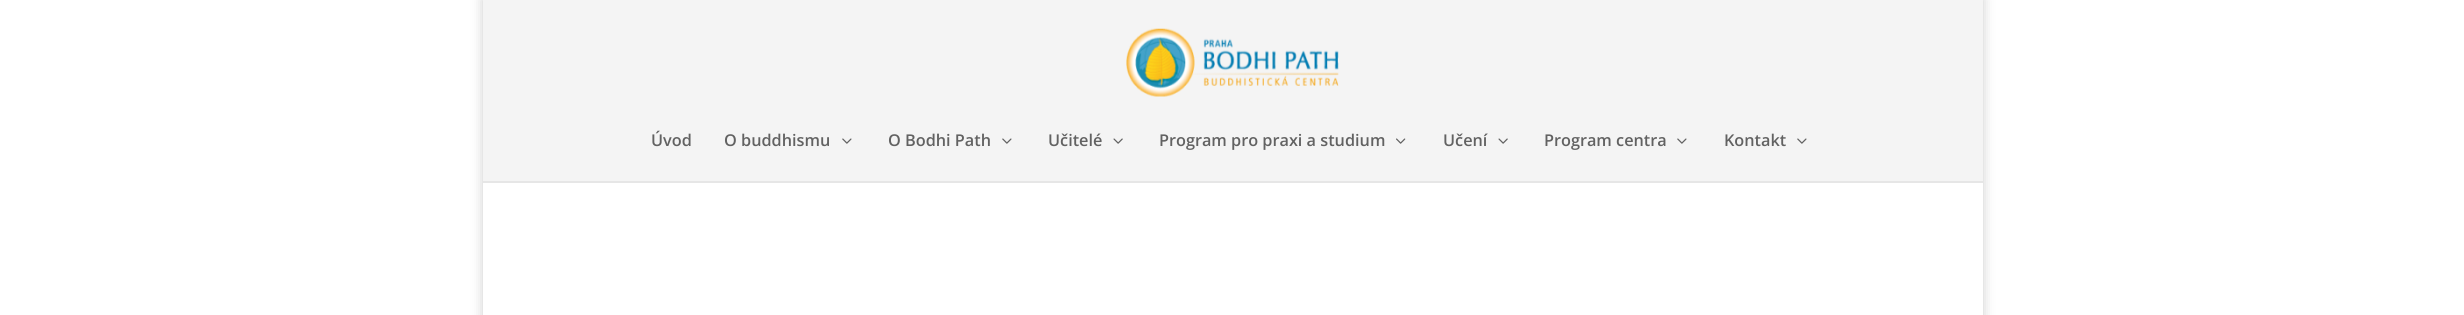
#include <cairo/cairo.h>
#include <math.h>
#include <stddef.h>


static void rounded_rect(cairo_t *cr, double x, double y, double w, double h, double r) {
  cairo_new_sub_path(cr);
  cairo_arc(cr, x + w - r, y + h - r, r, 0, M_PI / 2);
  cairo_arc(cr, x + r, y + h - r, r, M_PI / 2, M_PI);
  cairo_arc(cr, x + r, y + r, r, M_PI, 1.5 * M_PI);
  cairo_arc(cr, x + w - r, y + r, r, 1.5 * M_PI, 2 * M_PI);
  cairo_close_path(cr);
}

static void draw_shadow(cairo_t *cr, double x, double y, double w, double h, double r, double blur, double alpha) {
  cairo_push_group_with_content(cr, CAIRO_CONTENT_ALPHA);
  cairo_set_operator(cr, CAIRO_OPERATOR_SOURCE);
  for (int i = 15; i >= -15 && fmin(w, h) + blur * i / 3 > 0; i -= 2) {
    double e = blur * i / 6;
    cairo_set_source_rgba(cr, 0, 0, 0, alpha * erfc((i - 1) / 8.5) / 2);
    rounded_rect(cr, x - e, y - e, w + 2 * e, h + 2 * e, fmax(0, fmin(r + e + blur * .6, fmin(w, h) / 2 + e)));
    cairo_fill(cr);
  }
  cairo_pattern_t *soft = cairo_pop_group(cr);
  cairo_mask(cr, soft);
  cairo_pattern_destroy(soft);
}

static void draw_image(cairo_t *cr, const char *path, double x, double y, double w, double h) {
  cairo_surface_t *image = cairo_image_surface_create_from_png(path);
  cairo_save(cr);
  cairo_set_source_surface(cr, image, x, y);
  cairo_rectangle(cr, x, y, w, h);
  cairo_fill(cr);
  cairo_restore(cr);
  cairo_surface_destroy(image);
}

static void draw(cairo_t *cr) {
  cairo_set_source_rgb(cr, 1, 1, 1);
  cairo_paint(cr);
  cairo_set_source_rgb(cr, 0, 0, 0);
  draw_shadow(cr, 483, -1, 1500, 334, 0, 6, 0.2);
  cairo_set_source_rgb(cr, 1, 1, 1);
  cairo_rectangle(cr, 483, 181, 1500, 134);
  cairo_fill(cr);
  cairo_set_source_rgba(cr, 0, 0, 0, 0.1);
  cairo_new_path(cr);
  cairo_move_to(cr, 483, 181);
  cairo_line_to(cr, 483, 183);
  cairo_line_to(cr, 1983, 183);
  cairo_line_to(cr, 1983, 1);
  cairo_line_to(cr, 1982, 1);
  cairo_line_to(cr, 1982, 181);
  cairo_close_path(cr);
  cairo_fill(cr);
  cairo_set_source_rgb(cr, 244 / 255.0, 244 / 255.0, 244 / 255.0);
  cairo_rectangle(cr, 483, 0, 1500, 181);
  cairo_fill(cr);
  draw_image(cr, "images/1.png", 1126, 28, 213, 69);
  draw_image(cr, "images/2.png", 842, 138, 10, 6);
  draw_image(cr, "images/2.png", 1002, 138, 10, 6);
  draw_image(cr, "images/3.png", 1113, 138, 10, 6);
  draw_image(cr, "images/4.png", 1396, 138, 10, 6);
  draw_image(cr, "images/3.png", 1498, 138, 10, 6);
  draw_image(cr, "images/2.png", 1677, 138, 10, 6);
  draw_image(cr, "images/2.png", 1797, 138, 10, 6);
  cairo_select_font_face(cr, "Open Sans SemiBold", CAIRO_FONT_SLANT_NORMAL, CAIRO_FONT_WEIGHT_NORMAL);
  cairo_set_font_size(cr, 16.25);
  cairo_set_source_rgb(cr, 98 / 255.0, 98 / 255.0, 98 / 255.0);
  cairo_move_to(cr, 651, 146);
  cairo_show_text(cr, "Úvod");
  cairo_move_to(cr, 724, 146);
  cairo_show_text(cr, "O buddhismu");
  cairo_move_to(cr, 888, 146);
  cairo_show_text(cr, "O Bodhi Path");
  cairo_move_to(cr, 1048, 146);
  cairo_show_text(cr, "Učitelé");
  cairo_move_to(cr, 1159, 146);
  cairo_show_text(cr, "Program pro praxi a studium");
  cairo_move_to(cr, 1443, 146);
  cairo_show_text(cr, "Učení");
  cairo_move_to(cr, 1544, 146);
  cairo_show_text(cr, "Program centra");
  cairo_move_to(cr, 1724, 146);
  cairo_show_text(cr, "Kontakt");
}

int main(void) {
  cairo_surface_t *surface = cairo_image_surface_create(CAIRO_FORMAT_RGB24, 2464, 315);
  cairo_t *cr = cairo_create(surface);
  cairo_font_options_t *options = cairo_font_options_create();
  cairo_font_options_set_hint_metrics(options, CAIRO_HINT_METRICS_OFF);
  cairo_font_options_set_hint_style(options, CAIRO_HINT_STYLE_NONE);
  cairo_set_font_options(cr, options);
  cairo_set_miter_limit(cr, 4);
  draw(cr);
  cairo_surface_write_to_png(surface, "out.png");
  cairo_font_options_destroy(options);
  cairo_destroy(cr);
  cairo_surface_destroy(surface);
  return 0;
}
